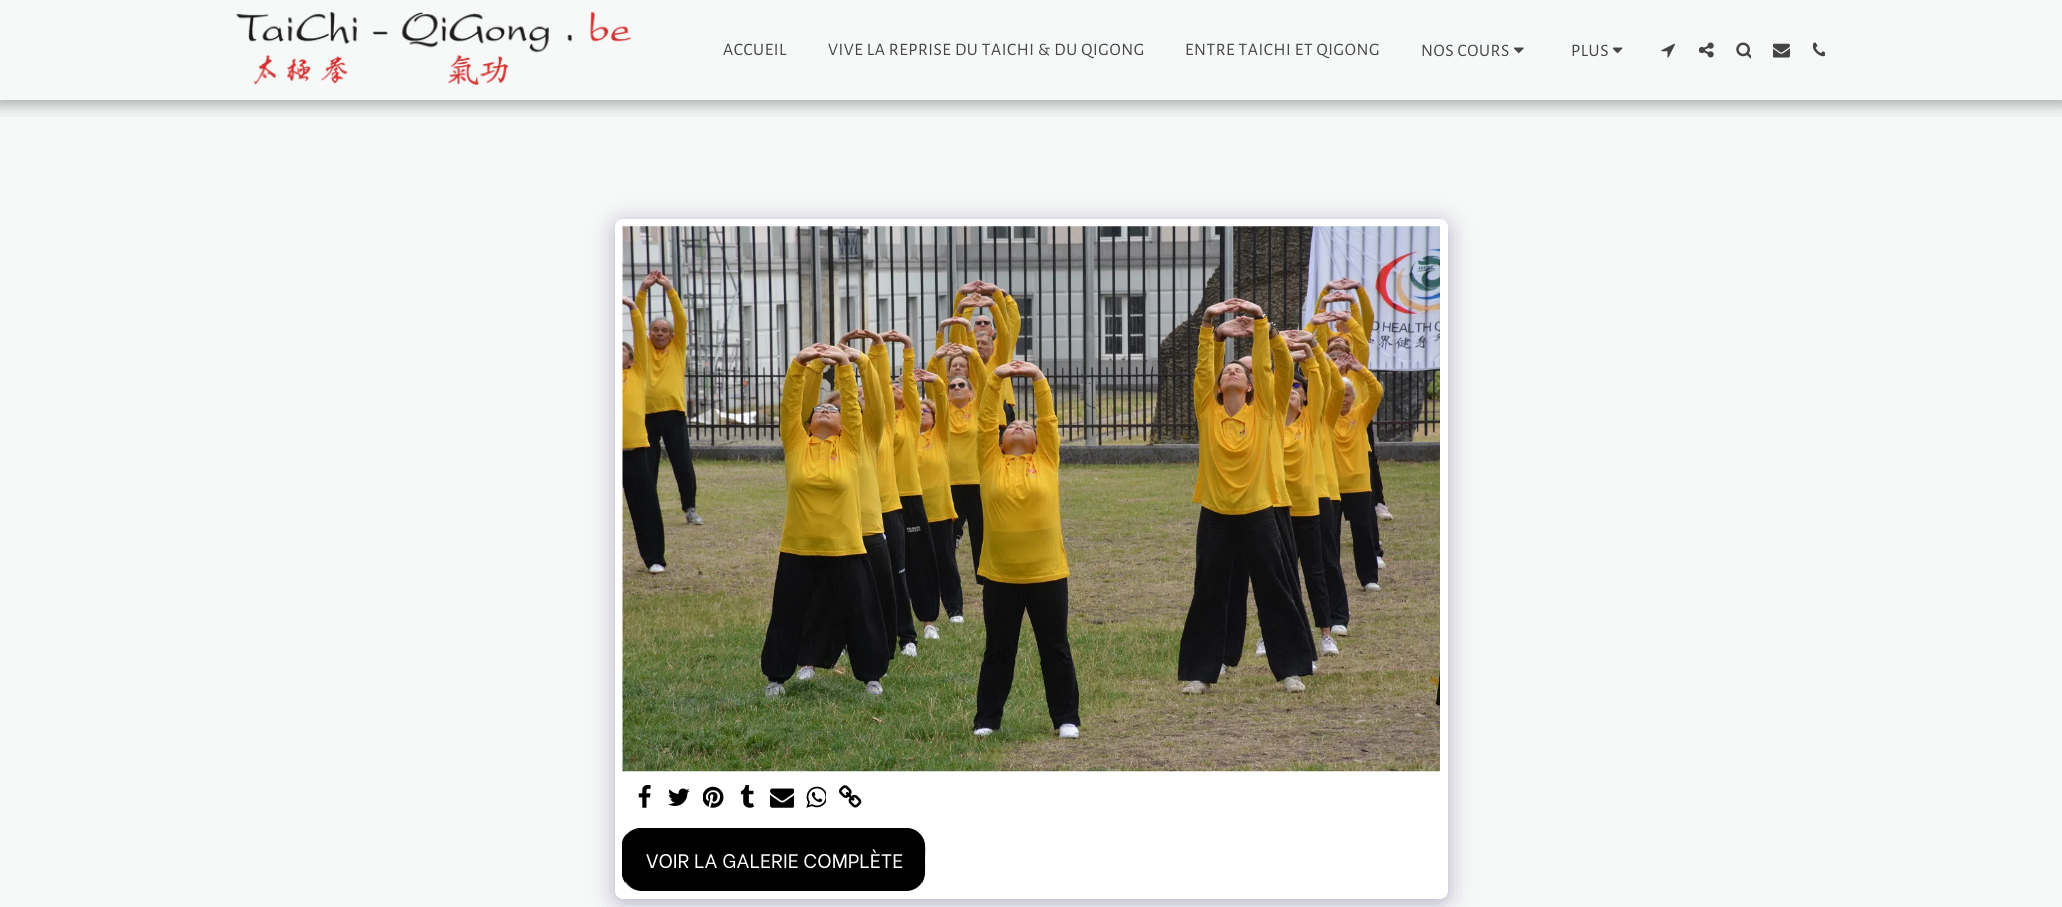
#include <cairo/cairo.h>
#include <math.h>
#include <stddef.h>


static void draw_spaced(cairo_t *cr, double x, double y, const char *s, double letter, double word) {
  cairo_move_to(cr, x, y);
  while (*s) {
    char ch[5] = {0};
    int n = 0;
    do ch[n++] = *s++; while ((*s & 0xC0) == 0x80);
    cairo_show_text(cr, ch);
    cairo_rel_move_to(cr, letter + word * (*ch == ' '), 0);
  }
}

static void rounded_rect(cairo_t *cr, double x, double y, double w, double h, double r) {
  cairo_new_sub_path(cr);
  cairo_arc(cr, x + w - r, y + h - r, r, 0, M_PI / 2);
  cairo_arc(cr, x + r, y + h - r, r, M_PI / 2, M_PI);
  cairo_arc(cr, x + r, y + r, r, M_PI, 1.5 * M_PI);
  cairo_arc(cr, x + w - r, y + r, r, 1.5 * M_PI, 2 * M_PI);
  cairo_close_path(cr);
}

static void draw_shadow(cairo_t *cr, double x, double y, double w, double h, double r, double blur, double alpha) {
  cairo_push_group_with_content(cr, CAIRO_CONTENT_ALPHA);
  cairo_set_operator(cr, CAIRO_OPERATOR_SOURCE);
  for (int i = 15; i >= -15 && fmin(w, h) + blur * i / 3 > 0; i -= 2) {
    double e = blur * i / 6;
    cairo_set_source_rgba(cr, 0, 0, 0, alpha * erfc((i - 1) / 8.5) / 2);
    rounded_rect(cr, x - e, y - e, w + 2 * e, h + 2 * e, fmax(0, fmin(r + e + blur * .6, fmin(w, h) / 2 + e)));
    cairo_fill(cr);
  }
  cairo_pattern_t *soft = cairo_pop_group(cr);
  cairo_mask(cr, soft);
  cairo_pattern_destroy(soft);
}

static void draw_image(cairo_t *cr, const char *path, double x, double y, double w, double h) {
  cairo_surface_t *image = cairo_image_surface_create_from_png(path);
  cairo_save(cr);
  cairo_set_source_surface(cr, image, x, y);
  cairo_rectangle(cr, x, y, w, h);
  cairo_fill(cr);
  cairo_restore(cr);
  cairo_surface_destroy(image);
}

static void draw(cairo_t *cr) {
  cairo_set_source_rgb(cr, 247 / 255.0, 249 / 255.0, 248 / 255.0);
  cairo_paint(cr);
  cairo_save(cr);
  cairo_rectangle(cr, 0, 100, 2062, 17);
  cairo_clip(cr);
  cairo_set_source_rgb(cr, 25 / 255.0, 25 / 255.0, 25 / 255.0);
  draw_shadow(cr, -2, 0, 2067, 105, 0, 7.5, 0.35);
  cairo_restore(cr);
  draw_image(cr, "images/1.png", 236, 12, 395, 73);
  draw_image(cr, "images/2.png", 1514, 47, 10, 7);
  draw_image(cr, "images/3.png", 1613, 47, 10, 7);
  draw_image(cr, "images/4.png", 1661, 43, 14, 15);
  draw_image(cr, "images/5.png", 1699, 42, 15, 16);
  draw_image(cr, "images/6.png", 1736, 42, 15, 17);
  draw_image(cr, "images/7.png", 1773, 43, 17, 15);
  draw_image(cr, "images/8.png", 1813, 42, 12, 15);
  cairo_set_source_rgb(cr, 77 / 255.0, 63 / 255.0, 122 / 255.0);
  draw_shadow(cr, 615, 223, 833, 680, 8, 12.5, 0.4);
  cairo_set_source_rgb(cr, 1, 1, 1);
  rounded_rect(cr, 615, 219, 833, 680, 8);
  cairo_fill(cr);
  draw_image(cr, "images/9.png", 622, 226, 818, 546);
  draw_image(cr, "images/10.png", 638, 785, 13, 23);
  draw_image(cr, "images/11.png", 668, 788, 22, 18);
  draw_image(cr, "images/12.png", 703, 786, 21, 22);
  draw_image(cr, "images/13.png", 740, 785, 14, 23);
  draw_image(cr, "images/14.png", 770, 788, 24, 20);
  draw_image(cr, "images/15.png", 806, 786, 20, 22);
  draw_image(cr, "images/16.png", 839, 785, 23, 23);
  cairo_set_source_rgb(cr, 0, 0, 0);
  rounded_rect(cr, 623, 828, 302, 63, 19);
  cairo_fill(cr);
  cairo_new_path(cr);
  cairo_move_to(cr, 641, 828);
  cairo_curve_to(cr, 636, 828, 631, 830, 628, 833);
  cairo_line_to(cr, 629, 834);
  cairo_curve_to(cr, 632, 831, 636, 829, 641, 829);
  cairo_line_to(cr, 906, 829);
  cairo_curve_to(cr, 911, 829, 915, 831, 919, 834);
  cairo_line_to(cr, 919, 833);
  cairo_curve_to(cr, 916, 830, 911, 828, 906, 828);
  cairo_close_path(cr);
  cairo_fill(cr);
  cairo_new_path(cr);
  cairo_move_to(cr, 919, 833);
  cairo_curve_to(cr, 927, 840, 925, 850, 925, 859);
  cairo_curve_to(cr, 925, 867, 926, 876, 922, 883);
  cairo_line_to(cr, 921, 880);
  cairo_curve_to(cr, 926, 874, 924, 866, 924, 859);
  cairo_curve_to(cr, 924, 850, 926, 841, 919, 834);
  cairo_close_path(cr);
  cairo_fill(cr);
  cairo_set_source_rgba(cr, 0, 0, 0, 0.2);
  cairo_new_path(cr);
  cairo_move_to(cr, 922, 883);
  cairo_curve_to(cr, 919, 888, 913, 891, 906, 891);
  cairo_line_to(cr, 641, 891);
  cairo_curve_to(cr, 635, 891, 629, 888, 625, 883);
  cairo_line_to(cr, 626, 880);
  cairo_curve_to(cr, 629, 885, 635, 888, 641, 888);
  cairo_line_to(cr, 906, 888);
  cairo_curve_to(cr, 913, 888, 918, 885, 921, 880);
  cairo_close_path(cr);
  cairo_fill(cr);
  cairo_set_source_rgb(cr, 0, 0, 0);
  cairo_new_path(cr);
  cairo_move_to(cr, 622, 842);
  cairo_curve_to(cr, 623, 838, 625, 835, 628, 833);
  cairo_line_to(cr, 629, 834);
  cairo_curve_to(cr, 622, 841, 624, 850, 624, 859);
  cairo_curve_to(cr, 624, 866, 623, 874, 626, 880);
  cairo_line_to(cr, 625, 883);
  cairo_curve_to(cr, 624, 881, 623, 879, 622, 876);
  cairo_close_path(cr);
  cairo_fill(cr);
  cairo_select_font_face(cr, "Alegreya Sans", CAIRO_FONT_SLANT_NORMAL, CAIRO_FONT_WEIGHT_NORMAL);
  cairo_set_font_size(cr, 17.5);
  cairo_set_source_rgb(cr, 69 / 255.0, 70 / 255.0, 69 / 255.0);
  draw_spaced(cr, 723, 55, "ACCUEIL", 0.6, 0);
  draw_spaced(cr, 828, 55, "VIVE LA REPRISE DU TAICHI & DU QIGONG", 0.6, 0);
  draw_spaced(cr, 1185, 55, "ENTRE TAICHI ET QIGONG", 0.6, 0);
  draw_spaced(cr, 1421, 56, "NOS COURS", 0.6, 0);
  draw_spaced(cr, 1571, 56, "PLUS", 0.6, 0);
  cairo_select_font_face(cr, "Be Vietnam", CAIRO_FONT_SLANT_NORMAL, CAIRO_FONT_WEIGHT_NORMAL);
  cairo_set_font_size(cr, 19.6);
  cairo_set_source_rgb(cr, 1, 1, 1);
  cairo_move_to(cr, 646, 868);
  cairo_show_text(cr, "VOIR LA GALERIE COMPLÈTE");
}

int main(void) {
  cairo_surface_t *surface = cairo_image_surface_create(CAIRO_FORMAT_RGB24, 2062, 907);
  cairo_t *cr = cairo_create(surface);
  cairo_font_options_t *options = cairo_font_options_create();
  cairo_font_options_set_hint_metrics(options, CAIRO_HINT_METRICS_OFF);
  cairo_font_options_set_hint_style(options, CAIRO_HINT_STYLE_NONE);
  cairo_set_font_options(cr, options);
  cairo_set_miter_limit(cr, 4);
  draw(cr);
  cairo_surface_write_to_png(surface, "out.png");
  cairo_font_options_destroy(options);
  cairo_destroy(cr);
  cairo_surface_destroy(surface);
  return 0;
}
